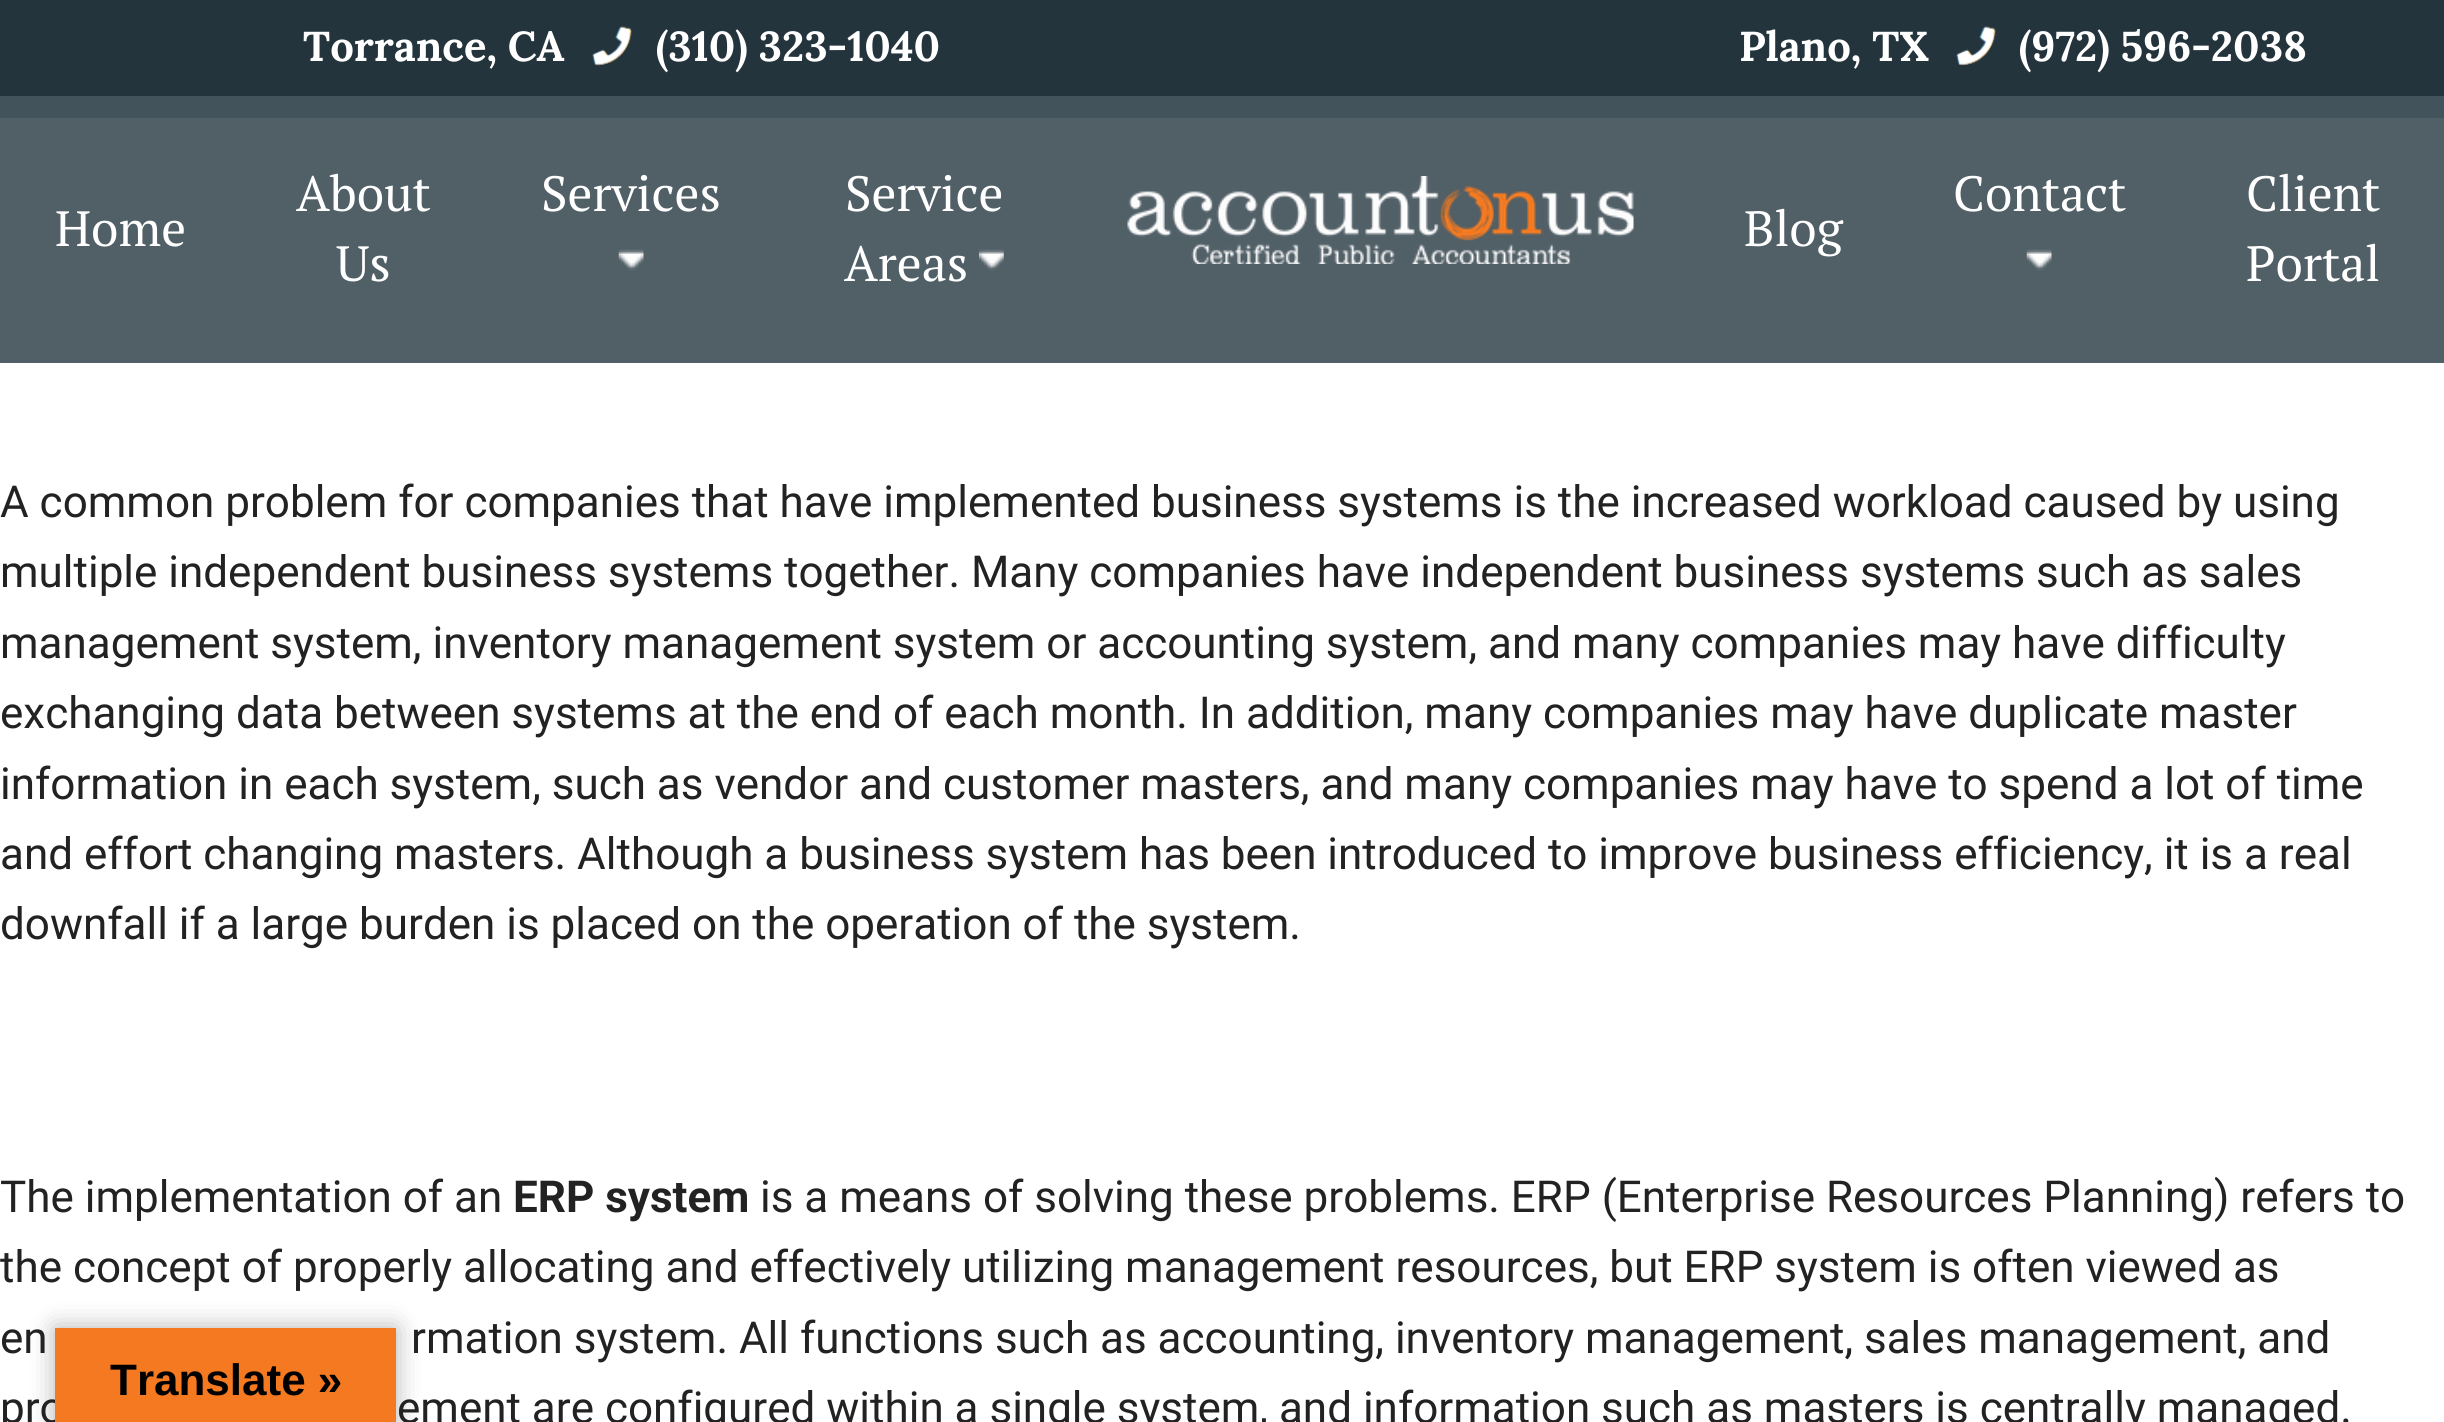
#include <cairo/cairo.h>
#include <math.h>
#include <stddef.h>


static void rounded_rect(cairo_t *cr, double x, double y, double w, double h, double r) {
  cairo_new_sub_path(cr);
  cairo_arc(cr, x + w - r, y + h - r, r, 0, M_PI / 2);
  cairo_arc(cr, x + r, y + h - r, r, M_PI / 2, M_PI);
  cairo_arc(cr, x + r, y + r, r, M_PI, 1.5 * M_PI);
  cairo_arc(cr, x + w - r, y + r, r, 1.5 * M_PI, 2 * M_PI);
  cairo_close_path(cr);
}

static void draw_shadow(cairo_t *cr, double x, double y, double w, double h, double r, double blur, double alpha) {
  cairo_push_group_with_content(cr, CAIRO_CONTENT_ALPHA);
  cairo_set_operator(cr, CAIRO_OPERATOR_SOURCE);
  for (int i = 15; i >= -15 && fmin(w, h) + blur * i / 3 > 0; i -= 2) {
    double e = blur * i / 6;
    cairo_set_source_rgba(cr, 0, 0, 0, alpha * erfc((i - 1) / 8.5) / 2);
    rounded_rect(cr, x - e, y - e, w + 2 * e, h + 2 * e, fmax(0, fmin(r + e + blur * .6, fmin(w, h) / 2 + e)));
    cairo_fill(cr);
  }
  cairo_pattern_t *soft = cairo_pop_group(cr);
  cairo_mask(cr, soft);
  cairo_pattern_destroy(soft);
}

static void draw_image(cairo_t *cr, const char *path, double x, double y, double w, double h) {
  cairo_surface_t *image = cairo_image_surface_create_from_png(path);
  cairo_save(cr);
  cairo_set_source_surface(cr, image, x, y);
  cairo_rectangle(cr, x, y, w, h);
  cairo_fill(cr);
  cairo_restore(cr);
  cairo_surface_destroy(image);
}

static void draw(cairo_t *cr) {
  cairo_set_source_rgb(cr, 1, 1, 1);
  cairo_paint(cr);
  cairo_set_source_rgb(cr, 82 / 255.0, 96 / 255.0, 103 / 255.0);
  cairo_rectangle(cr, 0, 96, 2444, 22);
  cairo_fill(cr);
  cairo_set_source_rgb(cr, 36 / 255.0, 52 / 255.0, 60 / 255.0);
  cairo_rectangle(cr, 0, 0, 2444, 96);
  cairo_fill(cr);
  draw_image(cr, "images/1.png", 592, 26, 40, 40);
  draw_image(cr, "images/1.png", 1956, 26, 40, 40);
  cairo_set_source_rgba(cr, 67 / 255.0, 82 / 255.0, 90 / 255.0, 0.92);
  cairo_rectangle(cr, 0, 96, 2444, 267);
  cairo_fill(cr);
  draw_image(cr, "images/2.png", 618, 249, 26, 22);
  draw_image(cr, "images/3.png", 979, 249, 25, 22);
  draw_image(cr, "images/4.png", 1127, 176, 507, 88);
  draw_image(cr, "images/2.png", 2026, 249, 26, 22);
  cairo_set_source_rgb(cr, 0, 0, 0);
  draw_shadow(cr, 55, 1328, 341, 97, 0, 12.5, 0.3);
  cairo_select_font_face(cr, "Lora", CAIRO_FONT_SLANT_NORMAL, CAIRO_FONT_WEIGHT_BOLD);
  cairo_set_font_size(cr, 41.75);
  cairo_set_source_rgb(cr, 1, 1, 1);
  cairo_move_to(cr, 303, 61);
  cairo_show_text(cr, "Torrance, CA");
  cairo_move_to(cr, 656, 61);
  cairo_show_text(cr, "(310) 323-1040");
  cairo_move_to(cr, 1739, 61);
  cairo_show_text(cr, "Plano, TX");
  cairo_move_to(cr, 2019, 61);
  cairo_show_text(cr, "(972) 596-2038");
  cairo_select_font_face(cr, "PT Serif", CAIRO_FONT_SLANT_NORMAL, CAIRO_FONT_WEIGHT_NORMAL);
  cairo_set_font_size(cr, 49.5);
  cairo_move_to(cr, 55, 246);
  cairo_show_text(cr, "Home");
  cairo_move_to(cr, 296, 211);
  cairo_show_text(cr, "About");
  cairo_move_to(cr, 336, 281);
  cairo_show_text(cr, "Us");
  cairo_move_to(cr, 541, 211);
  cairo_show_text(cr, "Services");
  cairo_move_to(cr, 845, 211);
  cairo_show_text(cr, "Service");
  cairo_move_to(cr, 844, 281);
  cairo_show_text(cr, "Areas");
  cairo_move_to(cr, 1744, 246);
  cairo_show_text(cr, "Blog");
  cairo_move_to(cr, 1953, 211);
  cairo_show_text(cr, "Contact");
  cairo_move_to(cr, 2246, 211);
  cairo_show_text(cr, "Client");
  cairo_move_to(cr, 2246, 281);
  cairo_show_text(cr, "Portal");
  cairo_select_font_face(cr, "Roboto", CAIRO_FONT_SLANT_NORMAL, CAIRO_FONT_WEIGHT_NORMAL);
  cairo_set_font_size(cr, 44);
  cairo_set_source_rgb(cr, 34 / 255.0, 34 / 255.0, 34 / 255.0);
  cairo_move_to(cr, 0, 517);
  cairo_show_text(cr, "A common problem for companies that have implemented business systems is the increased workload caused by using");
  cairo_move_to(cr, 0, 587);
  cairo_show_text(cr, "multiple independent business systems together. Many companies have independent business systems such as sales");
  cairo_move_to(cr, 0, 658);
  cairo_show_text(cr, "management system, inventory management system or accounting system, and many companies may have difficulty");
  cairo_move_to(cr, 0, 728);
  cairo_show_text(cr, "exchanging data between systems at the end of each month. In addition, many companies may have duplicate master");
  cairo_move_to(cr, 0, 799);
  cairo_show_text(cr, "information in each system, such as vendor and customer masters, and many companies may have to spend a lot of time");
  cairo_move_to(cr, 0, 869);
  cairo_show_text(cr, "and effort changing masters. Although a business system has been introduced to improve business efficiency, it is a real");
  cairo_move_to(cr, 0, 939);
  cairo_show_text(cr, "downfall if a large burden is placed on the operation of the system.");
  cairo_move_to(cr, 0, 1212);
  cairo_show_text(cr, "The implementation of an");
  cairo_select_font_face(cr, "Roboto", CAIRO_FONT_SLANT_NORMAL, CAIRO_FONT_WEIGHT_BOLD);
  cairo_move_to(cr, 513, 1212);
  cairo_show_text(cr, "ERP system");
  cairo_select_font_face(cr, "Roboto", CAIRO_FONT_SLANT_NORMAL, CAIRO_FONT_WEIGHT_NORMAL);
  cairo_move_to(cr, 760, 1212);
  cairo_show_text(cr, "is a means of solving these problems. ERP (Enterprise Resources Planning) refers to");
  cairo_move_to(cr, 0, 1282);
  cairo_show_text(cr, "the concept of properly allocating and effectively utilizing management resources, but ERP system is often viewed as");
  cairo_move_to(cr, 0, 1353);
  cairo_show_text(cr, "en");
  cairo_move_to(cr, 411, 1353);
  cairo_show_text(cr, "rmation system. All functions such as accounting, inventory management, sales management, and");
  cairo_move_to(cr, 0, 1423);
  cairo_show_text(cr, "pro");
  cairo_move_to(cr, 397, 1423);
  cairo_show_text(cr, "ement are configured within a single system, and information such as masters is centrally managed.");
  cairo_set_source_rgb(cr, 244 / 255.0, 121 / 255.0, 32 / 255.0);
  cairo_rectangle(cr, 55, 1328, 341, 94);
  cairo_fill(cr);
  cairo_select_font_face(cr, "Liberation Sans", CAIRO_FONT_SLANT_NORMAL, CAIRO_FONT_WEIGHT_BOLD);
  cairo_set_source_rgb(cr, 0, 0, 0);
  cairo_move_to(cr, 110, 1395);
  cairo_show_text(cr, "Translate »");
}

int main(void) {
  cairo_surface_t *surface = cairo_image_surface_create(CAIRO_FORMAT_RGB24, 2444, 1422);
  cairo_t *cr = cairo_create(surface);
  cairo_font_options_t *options = cairo_font_options_create();
  cairo_font_options_set_hint_metrics(options, CAIRO_HINT_METRICS_OFF);
  cairo_font_options_set_hint_style(options, CAIRO_HINT_STYLE_NONE);
  cairo_set_font_options(cr, options);
  cairo_set_miter_limit(cr, 4);
  draw(cr);
  cairo_surface_write_to_png(surface, "out.png");
  cairo_font_options_destroy(options);
  cairo_destroy(cr);
  cairo_surface_destroy(surface);
  return 0;
}
